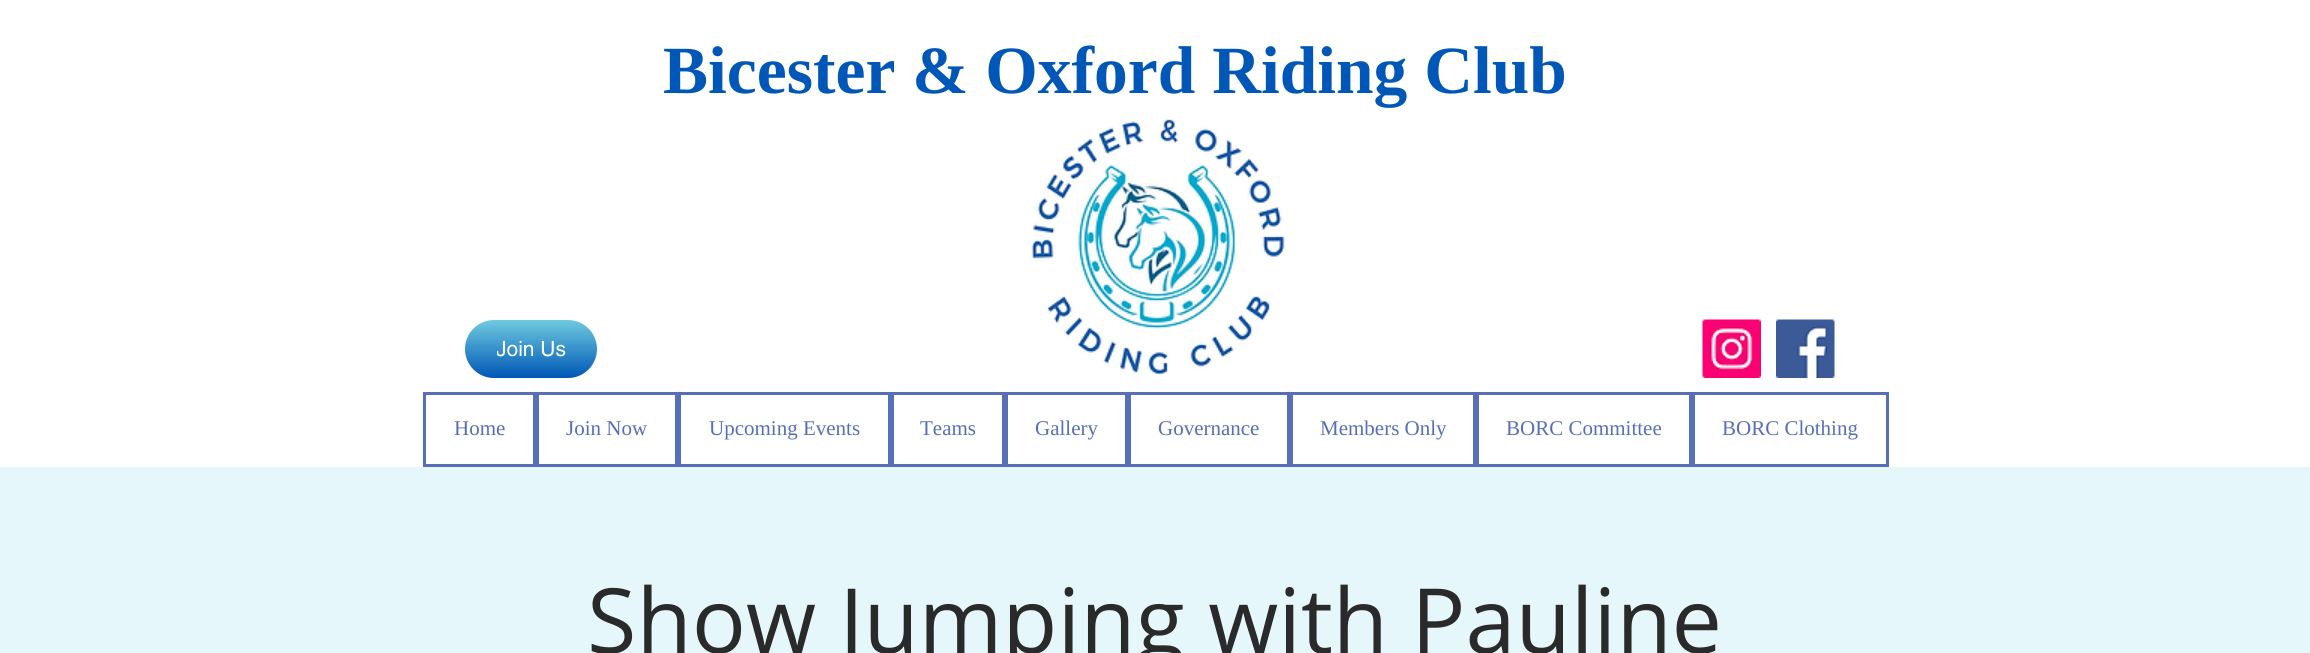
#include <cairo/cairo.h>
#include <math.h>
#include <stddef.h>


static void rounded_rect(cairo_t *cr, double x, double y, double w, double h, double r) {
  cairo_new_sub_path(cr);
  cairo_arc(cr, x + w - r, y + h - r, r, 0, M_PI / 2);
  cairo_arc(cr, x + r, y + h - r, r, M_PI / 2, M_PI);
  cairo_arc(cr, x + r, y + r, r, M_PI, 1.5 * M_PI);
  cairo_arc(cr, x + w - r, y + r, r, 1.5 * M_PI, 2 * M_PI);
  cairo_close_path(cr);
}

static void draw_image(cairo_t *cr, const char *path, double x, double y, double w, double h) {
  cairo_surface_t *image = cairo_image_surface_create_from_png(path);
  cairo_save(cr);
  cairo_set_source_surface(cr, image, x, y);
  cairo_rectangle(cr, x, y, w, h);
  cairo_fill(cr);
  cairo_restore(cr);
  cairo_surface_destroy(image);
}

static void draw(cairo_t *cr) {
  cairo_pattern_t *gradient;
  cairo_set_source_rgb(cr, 1, 1, 1);
  cairo_paint(cr);
  gradient = cairo_pattern_create_linear(531, 320, 531, 378);
  cairo_pattern_add_color_stop_rgba(gradient, 0, 111 / 255.0, 202 / 255.0, 222 / 255.0, 1);
  cairo_pattern_add_color_stop_rgba(gradient, 1, 0, 87 / 255.0, 183 / 255.0, 1);
  cairo_set_source(cr, gradient);
  cairo_pattern_destroy(gradient);
  rounded_rect(cr, 465, 320, 132, 58, 29);
  cairo_fill(cr);
  draw_image(cr, "images/1.png", 1031, 119, 254, 256);
  draw_image(cr, "images/2.png", 1702, 319, 59, 59);
  draw_image(cr, "images/3.png", 1776, 319, 59, 59);
  cairo_rectangle(cr, 424.5, 393.5, 110, 72);
  cairo_set_source_rgb(cr, 86 / 255.0, 111 / 255.0, 184 / 255.0);
  cairo_set_line_width(cr, 3);
  cairo_stroke(cr);
  cairo_rectangle(cr, 537.5, 393.5, 139, 72);
  cairo_stroke(cr);
  cairo_rectangle(cr, 679.5, 393.5, 210, 72);
  cairo_stroke(cr);
  cairo_rectangle(cr, 892.5, 393.5, 111, 72);
  cairo_stroke(cr);
  cairo_rectangle(cr, 1006.5, 393.5, 120, 72);
  cairo_stroke(cr);
  cairo_rectangle(cr, 1129.5, 393.5, 159, 72);
  cairo_stroke(cr);
  cairo_rectangle(cr, 1291.5, 393.5, 183, 72);
  cairo_stroke(cr);
  cairo_rectangle(cr, 1477.5, 393.5, 213, 72);
  cairo_stroke(cr);
  cairo_rectangle(cr, 1693.5, 393.5, 194, 72);
  cairo_stroke(cr);
  cairo_set_source_rgb(cr, 230 / 255.0, 247 / 255.0, 251 / 255.0);
  cairo_rectangle(cr, 0, 467, 2310, 186);
  cairo_fill(cr);
  cairo_select_font_face(cr, "Liberation Serif", CAIRO_FONT_SLANT_NORMAL, CAIRO_FONT_WEIGHT_BOLD);
  cairo_set_font_size(cr, 67.5);
  cairo_set_source_rgb(cr, 0, 87 / 255.0, 183 / 255.0);
  cairo_move_to(cr, 663, 93);
  cairo_show_text(cr, "Bicester & Oxford Riding Club");
  cairo_save(cr);
  cairo_rectangle(cr, 497, 338, 69, 24);
  cairo_clip(cr);
  cairo_select_font_face(cr, "helvetica", CAIRO_FONT_SLANT_NORMAL, CAIRO_FONT_WEIGHT_NORMAL);
  cairo_set_font_size(cr, 21);
  cairo_set_source_rgb(cr, 1, 1, 1);
  cairo_move_to(cr, 496, 356);
  cairo_show_text(cr, "Join Us");
  cairo_restore(cr);
  cairo_select_font_face(cr, "Liberation Serif", CAIRO_FONT_SLANT_NORMAL, CAIRO_FONT_WEIGHT_NORMAL);
  cairo_set_font_size(cr, 21);
  cairo_set_source_rgb(cr, 86 / 255.0, 111 / 255.0, 184 / 255.0);
  cairo_move_to(cr, 454, 435);
  cairo_show_text(cr, "Home");
  cairo_move_to(cr, 566, 435);
  cairo_show_text(cr, "Join Now");
  cairo_move_to(cr, 709, 435);
  cairo_show_text(cr, "Upcoming Events");
  cairo_move_to(cr, 920, 435);
  cairo_show_text(cr, "Teams");
  cairo_move_to(cr, 1035, 435);
  cairo_show_text(cr, "Gallery");
  cairo_move_to(cr, 1158, 435);
  cairo_show_text(cr, "Governance");
  cairo_move_to(cr, 1320, 435);
  cairo_show_text(cr, "Members Only");
  cairo_move_to(cr, 1506, 435);
  cairo_show_text(cr, "BORC Committee");
  cairo_move_to(cr, 1722, 435);
  cairo_show_text(cr, "BORC Clothing");
  cairo_select_font_face(cr, "Open Sans", CAIRO_FONT_SLANT_NORMAL, CAIRO_FONT_WEIGHT_NORMAL);
  cairo_set_font_size(cr, 90);
  cairo_set_source_rgb(cr, 42 / 255.0, 42 / 255.0, 42 / 255.0);
  cairo_move_to(cr, 587, 653);
  cairo_show_text(cr, "Show Jumping with Pauline");
}

int main(void) {
  cairo_surface_t *surface = cairo_image_surface_create(CAIRO_FORMAT_RGB24, 2310, 653);
  cairo_t *cr = cairo_create(surface);
  cairo_font_options_t *options = cairo_font_options_create();
  cairo_font_options_set_hint_metrics(options, CAIRO_HINT_METRICS_OFF);
  cairo_font_options_set_hint_style(options, CAIRO_HINT_STYLE_NONE);
  cairo_set_font_options(cr, options);
  cairo_set_miter_limit(cr, 4);
  draw(cr);
  cairo_surface_write_to_png(surface, "out.png");
  cairo_font_options_destroy(options);
  cairo_destroy(cr);
  cairo_surface_destroy(surface);
  return 0;
}
